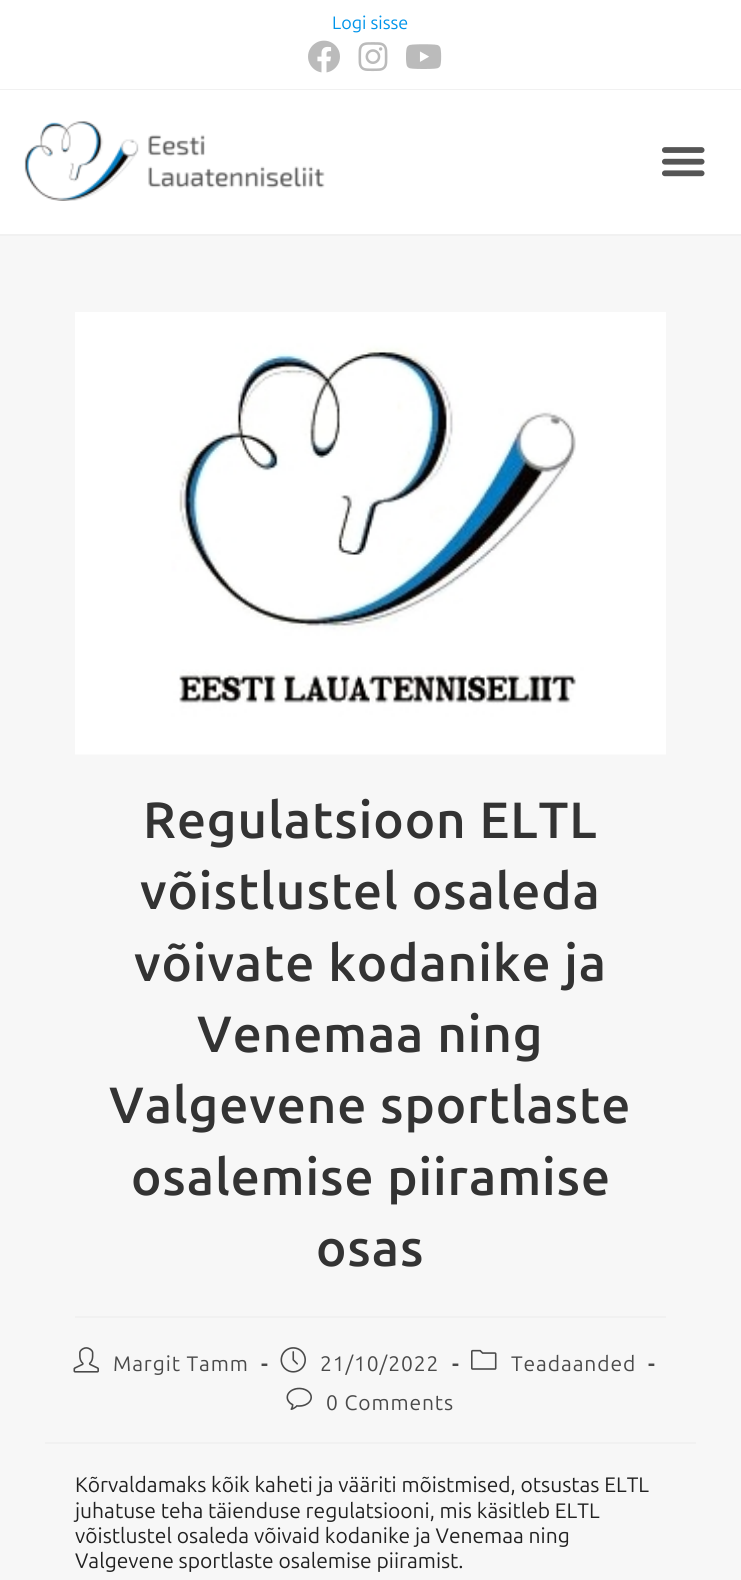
#include <cairo/cairo.h>
#include <math.h>
#include <stddef.h>


static void draw_spaced(cairo_t *cr, double x, double y, const char *s, double letter, double word) {
  cairo_move_to(cr, x, y);
  while (*s) {
    char ch[5] = {0};
    int n = 0;
    do ch[n++] = *s++; while ((*s & 0xC0) == 0x80);
    cairo_show_text(cr, ch);
    cairo_rel_move_to(cr, letter + word * (*ch == ' '), 0);
  }
}

static void draw_image(cairo_t *cr, const char *path, double x, double y, double w, double h) {
  cairo_surface_t *image = cairo_image_surface_create_from_png(path);
  cairo_save(cr);
  cairo_set_source_surface(cr, image, x, y);
  cairo_rectangle(cr, x, y, w, h);
  cairo_fill(cr);
  cairo_restore(cr);
  cairo_surface_destroy(image);
}

static void draw(cairo_t *cr) {
  cairo_set_source_rgb(cr, 247 / 255.0, 247 / 255.0, 247 / 255.0);
  cairo_paint(cr);
  cairo_set_source_rgb(cr, 1, 1, 1);
  cairo_rectangle(cr, 0, 0, 741, 89);
  cairo_fill(cr);
  cairo_set_source_rgb(cr, 241 / 255.0, 241 / 255.0, 241 / 255.0);
  cairo_rectangle(cr, 0, 89, 741, 1);
  cairo_fill(cr);
  draw_image(cr, "images/1.png", 308, 40, 32, 33);
  draw_image(cr, "images/2.png", 358, 42, 30, 30);
  draw_image(cr, "images/3.png", 406, 44, 36, 25);
  cairo_set_source_rgb(cr, 1, 1, 1);
  cairo_rectangle(cr, 0, 90, 741, 144);
  cairo_fill(cr);
  cairo_set_source_rgb(cr, 241 / 255.0, 241 / 255.0, 241 / 255.0);
  cairo_rectangle(cr, 0, 234, 741, 2);
  cairo_fill(cr);
  draw_image(cr, "images/4.png", 24, 121, 301, 80);
  draw_image(cr, "images/5.png", 662, 147, 43, 30);
  draw_image(cr, "images/6.png", 75, 312, 591, 443);
  cairo_rectangle(cr, 75, 1316, 591, 2);
  cairo_fill(cr);
  cairo_rectangle(cr, 45, 1442, 651, 2);
  cairo_fill(cr);
  draw_image(cr, "images/7.png", 73, 1347, 26, 26);
  draw_image(cr, "images/8.png", 280, 1347, 26, 26);
  draw_image(cr, "images/9.png", 471, 1349, 26, 21);
  draw_image(cr, "images/10.png", 286, 1387, 26, 23);
  cairo_select_font_face(cr, "Ubuntu Sans", CAIRO_FONT_SLANT_NORMAL, CAIRO_FONT_WEIGHT_NORMAL);
  cairo_set_font_size(cr, 18);
  cairo_set_source_rgb(cr, 0, 148 / 255.0, 234 / 255.0);
  cairo_move_to(cr, 332, 29);
  cairo_show_text(cr, "Logi sisse");
  cairo_select_font_face(cr, "Ubuntu Sans SemiBold", CAIRO_FONT_SLANT_NORMAL, CAIRO_FONT_WEIGHT_NORMAL);
  cairo_set_font_size(cr, 51);
  cairo_set_source_rgb(cr, 51 / 255.0, 51 / 255.0, 51 / 255.0);
  draw_spaced(cr, 143, 838, "Regulatsioon ELTL", 0.9, 0);
  draw_spaced(cr, 140, 909, "võistlustel osaleda", 0.9, 0);
  draw_spaced(cr, 134, 981, "võivate kodanike ja", 0.9, 0);
  draw_spaced(cr, 197, 1052, "Venemaa ning", 0.9, 0);
  draw_spaced(cr, 109, 1123, "Valgevene sportlaste", 0.9, 0);
  draw_spaced(cr, 131, 1195, "osalemise piiramise", 0.9, 0);
  draw_spaced(cr, 316, 1266, "osas", 0.9, 0);
  cairo_select_font_face(cr, "Ubuntu Sans", CAIRO_FONT_SLANT_NORMAL, CAIRO_FONT_WEIGHT_NORMAL);
  cairo_set_font_size(cr, 21);
  cairo_set_source_rgb(cr, 74 / 255.0, 74 / 255.0, 74 / 255.0);
  draw_spaced(cr, 113, 1371, "Margit Tamm", 0.9, 0);
  cairo_select_font_face(cr, "Ubuntu Sans", CAIRO_FONT_SLANT_NORMAL, CAIRO_FONT_WEIGHT_BOLD);
  draw_spaced(cr, 261, 1371, "-", 0.9, 0);
  cairo_select_font_face(cr, "Ubuntu Sans", CAIRO_FONT_SLANT_NORMAL, CAIRO_FONT_WEIGHT_NORMAL);
  draw_spaced(cr, 320, 1371, "21/10/2022", 0.9, 0);
  cairo_select_font_face(cr, "Ubuntu Sans", CAIRO_FONT_SLANT_NORMAL, CAIRO_FONT_WEIGHT_BOLD);
  draw_spaced(cr, 452, 1371, "-", 0.9, 0);
  cairo_select_font_face(cr, "Ubuntu Sans", CAIRO_FONT_SLANT_NORMAL, CAIRO_FONT_WEIGHT_NORMAL);
  draw_spaced(cr, 511, 1371, "Teadaanded", 0.9, 0);
  cairo_select_font_face(cr, "Ubuntu Sans", CAIRO_FONT_SLANT_NORMAL, CAIRO_FONT_WEIGHT_BOLD);
  draw_spaced(cr, 648, 1371, "-", 0.9, 0);
  cairo_select_font_face(cr, "Ubuntu Sans", CAIRO_FONT_SLANT_NORMAL, CAIRO_FONT_WEIGHT_NORMAL);
  draw_spaced(cr, 326, 1410, "0 Comments", 0.9, 0);
  cairo_set_source_rgb(cr, 33 / 255.0, 33 / 255.0, 33 / 255.0);
  cairo_move_to(cr, 75, 1492);
  cairo_show_text(cr, "Kõrvaldamaks kõik kaheti ja vääriti mõistmised, otsustas ELTL");
  cairo_move_to(cr, 75, 1518);
  cairo_show_text(cr, "juhatuse teha täienduse regulatsiooni, mis käsitleb ELTL");
  cairo_move_to(cr, 75, 1543);
  cairo_show_text(cr, "võistlustel osaleda võivaid kodanike ja Venemaa ning");
  cairo_move_to(cr, 75, 1568);
  cairo_show_text(cr, "Valgevene sportlaste osalemise piiramist.");
}

int main(void) {
  cairo_surface_t *surface = cairo_image_surface_create(CAIRO_FORMAT_RGB24, 741, 1580);
  cairo_t *cr = cairo_create(surface);
  cairo_font_options_t *options = cairo_font_options_create();
  cairo_font_options_set_hint_metrics(options, CAIRO_HINT_METRICS_OFF);
  cairo_font_options_set_hint_style(options, CAIRO_HINT_STYLE_NONE);
  cairo_set_font_options(cr, options);
  cairo_set_miter_limit(cr, 4);
  draw(cr);
  cairo_surface_write_to_png(surface, "out.png");
  cairo_font_options_destroy(options);
  cairo_destroy(cr);
  cairo_surface_destroy(surface);
  return 0;
}
